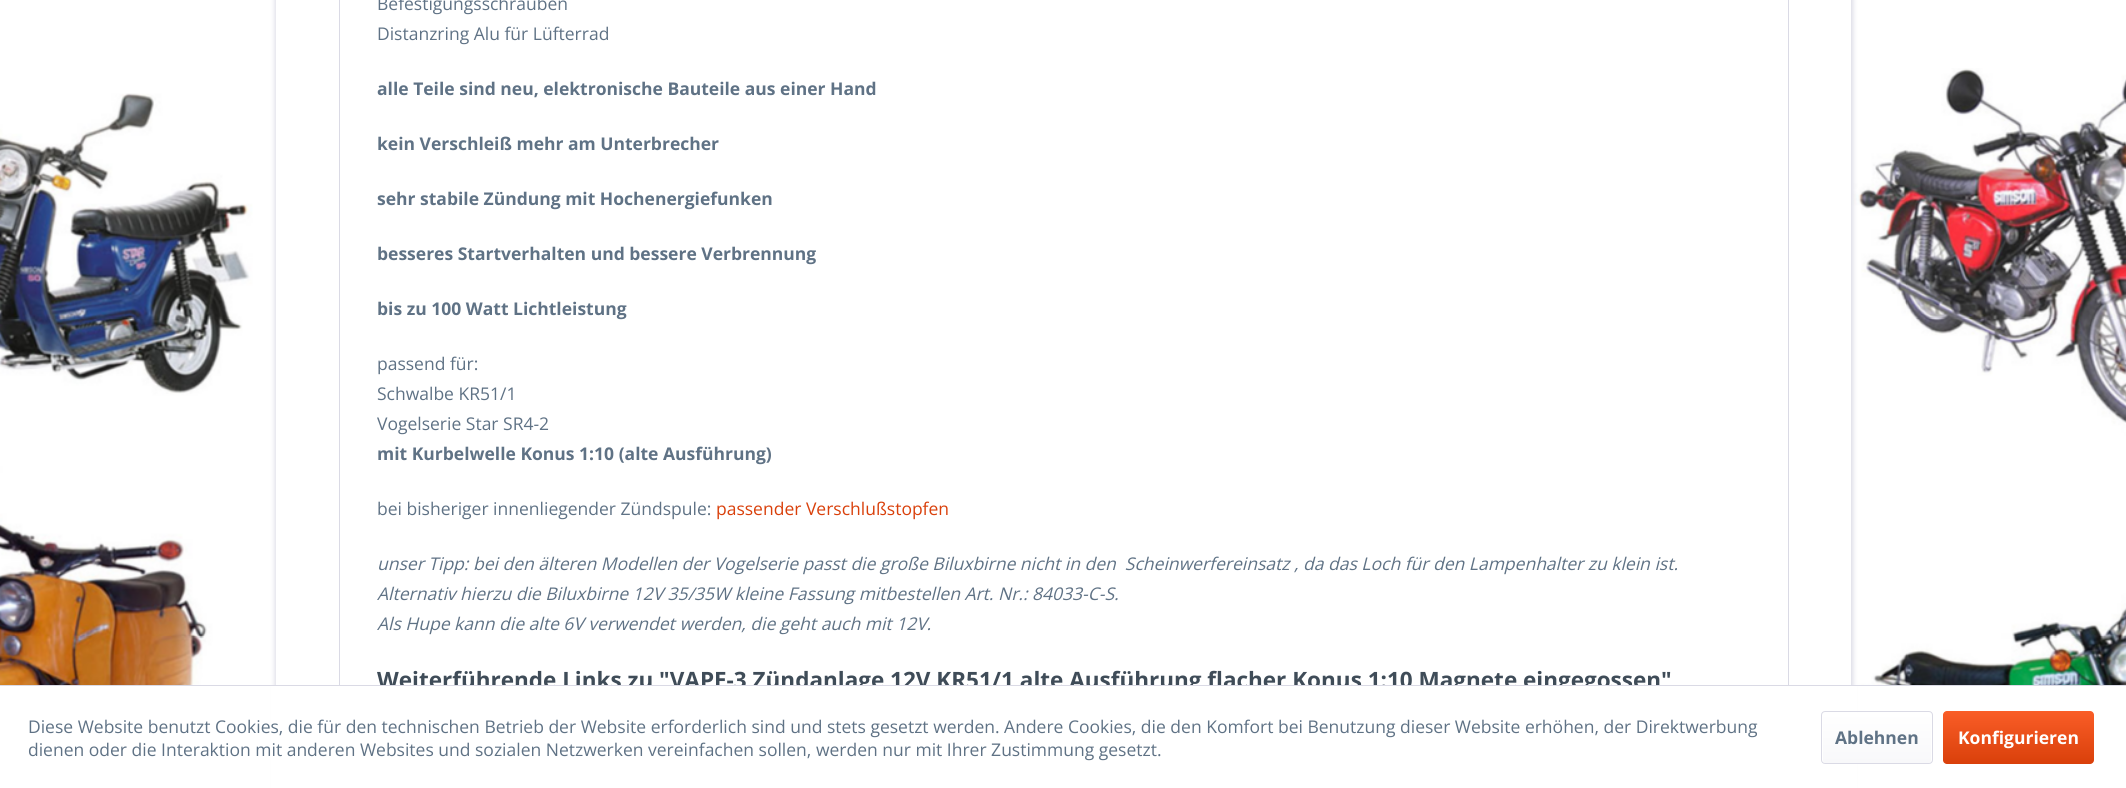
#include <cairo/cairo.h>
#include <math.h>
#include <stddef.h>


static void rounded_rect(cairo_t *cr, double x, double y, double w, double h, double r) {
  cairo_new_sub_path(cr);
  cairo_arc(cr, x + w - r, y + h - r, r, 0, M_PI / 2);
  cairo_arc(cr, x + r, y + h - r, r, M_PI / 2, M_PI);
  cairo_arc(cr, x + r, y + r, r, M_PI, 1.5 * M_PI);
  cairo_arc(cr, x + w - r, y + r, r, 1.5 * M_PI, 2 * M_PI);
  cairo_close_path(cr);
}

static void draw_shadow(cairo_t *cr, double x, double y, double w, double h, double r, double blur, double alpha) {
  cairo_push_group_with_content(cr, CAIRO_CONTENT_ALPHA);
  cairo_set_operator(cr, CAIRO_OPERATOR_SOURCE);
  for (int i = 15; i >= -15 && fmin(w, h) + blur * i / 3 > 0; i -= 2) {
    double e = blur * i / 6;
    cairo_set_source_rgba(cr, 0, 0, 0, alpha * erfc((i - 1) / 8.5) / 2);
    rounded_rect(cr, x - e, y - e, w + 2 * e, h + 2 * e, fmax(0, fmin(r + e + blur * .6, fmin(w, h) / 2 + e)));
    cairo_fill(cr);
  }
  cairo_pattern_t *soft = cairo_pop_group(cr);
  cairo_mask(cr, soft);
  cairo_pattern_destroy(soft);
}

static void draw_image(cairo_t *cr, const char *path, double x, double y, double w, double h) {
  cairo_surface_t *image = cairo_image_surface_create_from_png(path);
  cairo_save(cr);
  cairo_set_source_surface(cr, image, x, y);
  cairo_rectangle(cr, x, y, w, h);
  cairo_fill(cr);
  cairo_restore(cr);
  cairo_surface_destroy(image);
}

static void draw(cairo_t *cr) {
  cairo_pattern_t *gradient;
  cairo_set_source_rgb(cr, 1, 1, 1);
  cairo_paint(cr);
  draw_image(cr, "images/1.png", 0, 68, 2126, 617);
  cairo_set_source_rgb(cr, 218 / 255.0, 218 / 255.0, 229 / 255.0);
  draw_shadow(cr, 275, -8, 1578, 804, 0, 2.5, 1);
  cairo_set_source_rgb(cr, 1, 1, 1);
  cairo_rectangle(cr, 276, 0, 1575, 685);
  cairo_fill(cr);
  cairo_rectangle(cr, 339.5, -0.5, 1449, 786);
  cairo_set_source_rgb(cr, 218 / 255.0, 218 / 255.0, 229 / 255.0);
  cairo_set_line_width(cr, 1);
  cairo_stroke(cr);
  gradient = cairo_pattern_create_linear(2018, 711, 2018, 764);
  cairo_pattern_add_color_stop_rgba(gradient, 0, 250 / 255.0, 93 / 255.0, 39 / 255.0, 1);
  cairo_pattern_add_color_stop_rgba(gradient, 1, 217 / 255.0, 64 / 255.0, 11 / 255.0, 1);
  cairo_set_source(cr, gradient);
  cairo_pattern_destroy(gradient);
  rounded_rect(cr, 1943, 711, 151, 53, 4);
  cairo_fill(cr);
  cairo_select_font_face(cr, "Open Sans", CAIRO_FONT_SLANT_NORMAL, CAIRO_FONT_WEIGHT_NORMAL);
  cairo_set_font_size(cr, 17.5);
  cairo_set_source_rgb(cr, 95 / 255.0, 114 / 255.0, 133 / 255.0);
  cairo_move_to(cr, 377, 10);
  cairo_show_text(cr, "Befestigungsschrauben");
  cairo_move_to(cr, 377, 40);
  cairo_show_text(cr, "Distanzring Alu für Lüfterrad");
  cairo_select_font_face(cr, "Open Sans", CAIRO_FONT_SLANT_NORMAL, CAIRO_FONT_WEIGHT_BOLD);
  cairo_move_to(cr, 377, 95);
  cairo_show_text(cr, "alle Teile sind neu, elektronische Bauteile aus einer Hand");
  cairo_move_to(cr, 377, 150);
  cairo_show_text(cr, "kein Verschleiß mehr am Unterbrecher");
  cairo_move_to(cr, 377, 205);
  cairo_show_text(cr, "sehr stabile Zündung mit Hochenergiefunken");
  cairo_move_to(cr, 377, 260);
  cairo_show_text(cr, "besseres Startverhalten und bessere Verbrennung");
  cairo_move_to(cr, 377, 315);
  cairo_show_text(cr, "bis zu 100 Watt Lichtleistung");
  cairo_select_font_face(cr, "Open Sans", CAIRO_FONT_SLANT_NORMAL, CAIRO_FONT_WEIGHT_NORMAL);
  cairo_move_to(cr, 377, 370);
  cairo_show_text(cr, "passend für:");
  cairo_move_to(cr, 377, 400);
  cairo_show_text(cr, "Schwalbe KR51/1");
  cairo_move_to(cr, 377, 430);
  cairo_show_text(cr, "Vogelserie Star SR4-2");
  cairo_select_font_face(cr, "Open Sans", CAIRO_FONT_SLANT_NORMAL, CAIRO_FONT_WEIGHT_BOLD);
  cairo_move_to(cr, 377, 460);
  cairo_show_text(cr, "mit Kurbelwelle Konus 1:10 (alte Ausführung)");
  cairo_select_font_face(cr, "Open Sans", CAIRO_FONT_SLANT_NORMAL, CAIRO_FONT_WEIGHT_NORMAL);
  cairo_move_to(cr, 377, 515);
  cairo_show_text(cr, "bei bisheriger innenliegender Zündspule:");
  cairo_set_source_rgb(cr, 217 / 255.0, 64 / 255.0, 11 / 255.0);
  cairo_move_to(cr, 716, 515);
  cairo_show_text(cr, "passender Verschlußstopfen");
  cairo_select_font_face(cr, "Open Sans", CAIRO_FONT_SLANT_ITALIC, CAIRO_FONT_WEIGHT_NORMAL);
  cairo_set_source_rgb(cr, 95 / 255.0, 114 / 255.0, 133 / 255.0);
  cairo_move_to(cr, 377, 570);
  cairo_show_text(cr, "unser Tipp: bei den älteren Modellen der Vogelserie passt die große Biluxbirne nicht in den  Scheinwerfereinsatz , da das Loch für den Lampenhalter zu klein ist.");
  cairo_move_to(cr, 377, 600);
  cairo_show_text(cr, "Alternativ hierzu die Biluxbirne 12V 35/35W kleine Fassung mitbestellen Art. Nr.: 84033-C-S.");
  cairo_move_to(cr, 377, 630);
  cairo_show_text(cr, "Als Hupe kann die alte 6V verwendet werden, die geht auch mit 12V.");
  cairo_select_font_face(cr, "Open Sans", CAIRO_FONT_SLANT_NORMAL, CAIRO_FONT_WEIGHT_BOLD);
  cairo_set_font_size(cr, 22.5);
  cairo_set_source_rgb(cr, 63 / 255.0, 76 / 255.0, 88 / 255.0);
  cairo_move_to(cr, 377, 688);
  cairo_show_text(cr, "Weiterführende Links zu \"VAPE-3 Zündanlage 12V KR51/1 alte Ausführung flacher Konus 1:10 Magnete eingegossen\"");
  cairo_set_source_rgb(cr, 1, 1, 1);
  cairo_rectangle(cr, 271, 686, 1586, 102);
  cairo_fill(cr);
  cairo_set_source_rgb(cr, 218 / 255.0, 218 / 255.0, 229 / 255.0);
  cairo_rectangle(cr, 0, 685, 2126, 1);
  cairo_fill(cr);
  cairo_select_font_face(cr, "Open Sans", CAIRO_FONT_SLANT_NORMAL, CAIRO_FONT_WEIGHT_NORMAL);
  cairo_set_font_size(cr, 17.5);
  cairo_set_source_rgb(cr, 95 / 255.0, 114 / 255.0, 133 / 255.0);
  cairo_move_to(cr, 28, 733);
  cairo_show_text(cr, "Diese Website benutzt Cookies, die für den technischen Betrieb der Website erforderlich sind und stets gesetzt werden. Andere Cookies, die den Komfort bei Benutzung dieser Website erhöhen, der Direktwerbung");
  cairo_move_to(cr, 28, 756);
  cairo_show_text(cr, "dienen oder die Interaktion mit anderen Websites und sozialen Netzwerken vereinfachen sollen, werden nur mit Ihrer Zustimmung gesetzt.");
  gradient = cairo_pattern_create_linear(1877, 713, 1877, 763);
  cairo_pattern_add_color_stop_rgba(gradient, 0, 1, 1, 1, 1);
  cairo_pattern_add_color_stop_rgba(gradient, 1, 248 / 255.0, 248 / 255.0, 250 / 255.0, 1);
  cairo_set_source(cr, gradient);
  cairo_pattern_destroy(gradient);
  rounded_rect(cr, 1823, 713, 108, 50, 2.5);
  cairo_fill(cr);
  rounded_rect(cr, 1821.5, 711.5, 111, 52, 3.5);
  cairo_set_source_rgb(cr, 218 / 255.0, 218 / 255.0, 229 / 255.0);
  cairo_stroke(cr);
  cairo_select_font_face(cr, "Open Sans", CAIRO_FONT_SLANT_NORMAL, CAIRO_FONT_WEIGHT_BOLD);
  cairo_set_source_rgb(cr, 95 / 255.0, 114 / 255.0, 133 / 255.0);
  cairo_move_to(cr, 1835, 744);
  cairo_show_text(cr, "Ablehnen");
  cairo_set_source_rgb(cr, 1, 1, 1);
  cairo_move_to(cr, 1958, 744);
  cairo_show_text(cr, "Konfigurieren");
}

int main(void) {
  cairo_surface_t *surface = cairo_image_surface_create(CAIRO_FORMAT_RGB24, 2126, 788);
  cairo_t *cr = cairo_create(surface);
  cairo_font_options_t *options = cairo_font_options_create();
  cairo_font_options_set_hint_metrics(options, CAIRO_HINT_METRICS_OFF);
  cairo_font_options_set_hint_style(options, CAIRO_HINT_STYLE_NONE);
  cairo_set_font_options(cr, options);
  cairo_set_miter_limit(cr, 4);
  draw(cr);
  cairo_surface_write_to_png(surface, "out.png");
  cairo_font_options_destroy(options);
  cairo_destroy(cr);
  cairo_surface_destroy(surface);
  return 0;
}
